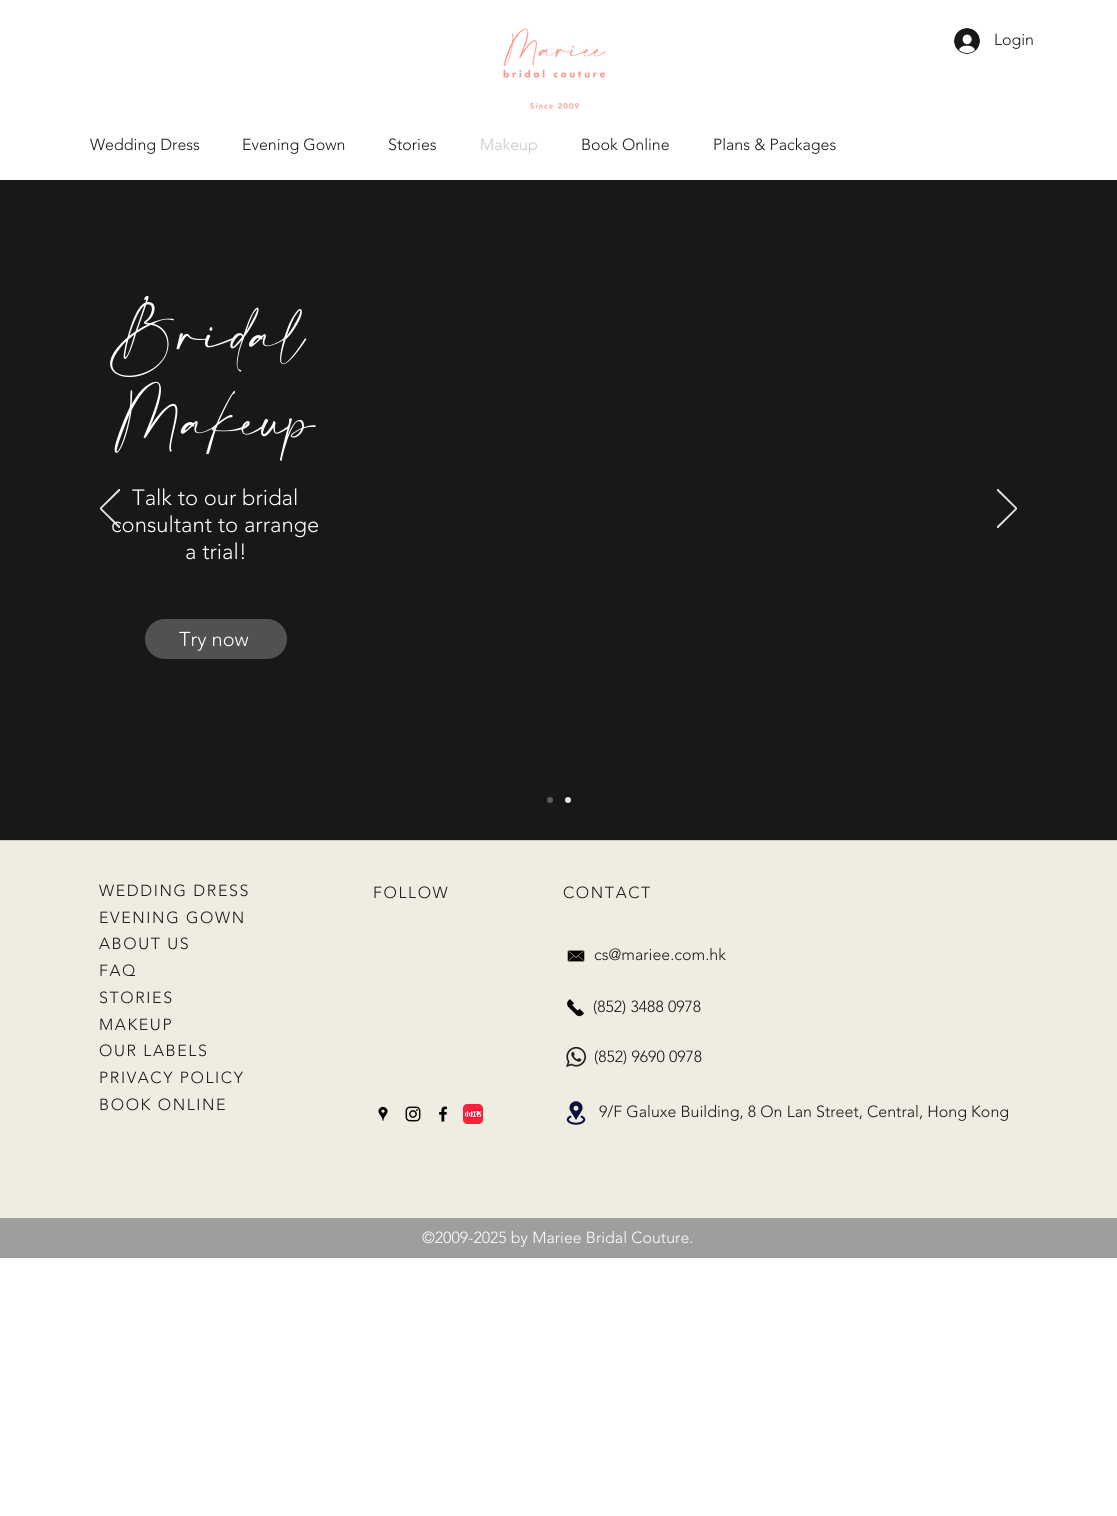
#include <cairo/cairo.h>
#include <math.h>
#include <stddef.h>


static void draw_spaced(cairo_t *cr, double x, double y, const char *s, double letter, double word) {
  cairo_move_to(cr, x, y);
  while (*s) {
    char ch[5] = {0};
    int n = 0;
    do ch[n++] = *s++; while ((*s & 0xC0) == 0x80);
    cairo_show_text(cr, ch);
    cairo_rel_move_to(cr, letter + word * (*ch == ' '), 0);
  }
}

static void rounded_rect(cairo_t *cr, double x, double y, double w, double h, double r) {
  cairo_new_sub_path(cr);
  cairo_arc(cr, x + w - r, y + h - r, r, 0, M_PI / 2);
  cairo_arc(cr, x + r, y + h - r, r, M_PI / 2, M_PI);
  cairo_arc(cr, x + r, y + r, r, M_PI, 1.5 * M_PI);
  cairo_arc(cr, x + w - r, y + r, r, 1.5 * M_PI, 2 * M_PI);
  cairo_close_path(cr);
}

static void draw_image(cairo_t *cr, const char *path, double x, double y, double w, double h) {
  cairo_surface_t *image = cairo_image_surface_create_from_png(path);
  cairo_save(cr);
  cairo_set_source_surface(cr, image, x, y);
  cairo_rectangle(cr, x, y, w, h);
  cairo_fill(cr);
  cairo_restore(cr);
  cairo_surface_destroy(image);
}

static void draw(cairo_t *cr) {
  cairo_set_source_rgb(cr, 1, 1, 1);
  cairo_paint(cr);
  draw_image(cr, "images/1.png", 503, 28, 103, 81);
  draw_image(cr, "images/2.png", 954, 28, 26, 26);
  cairo_set_source_rgb(cr, 24 / 255.0, 24 / 255.0, 24 / 255.0);
  cairo_rectangle(cr, 0, 180, 1117, 660);
  cairo_fill(cr);
  cairo_set_source_rgb(cr, 81 / 255.0, 81 / 255.0, 81 / 255.0);
  rounded_rect(cr, 145, 619, 142, 40, 20);
  cairo_fill(cr);
  cairo_save(cr);
  cairo_rectangle(cr, 997, 489, 20, 39);
  cairo_clip(cr);
  cairo_new_path(cr);
  cairo_move_to(cr, 997.5, 528);
  cairo_line_to(cr, 1017, 508.5);
  cairo_line_to(cr, 997.5, 489);
  cairo_line_to(cr, 997, 490);
  cairo_line_to(cr, 1016, 508.5);
  cairo_line_to(cr, 997, 527);
  cairo_close_path(cr);
  cairo_set_source_rgb(cr, 230 / 255.0, 230 / 255.0, 230 / 255.0);
  cairo_set_line_width(cr, 1);
  cairo_stroke(cr);
  cairo_restore(cr);
  cairo_set_source_rgb(cr, 93 / 255.0, 93 / 255.0, 93 / 255.0);
  cairo_arc(cr, 550, 800, 3, 0, 2 * M_PI);
  cairo_fill(cr);
  cairo_set_source_rgb(cr, 230 / 255.0, 230 / 255.0, 230 / 255.0);
  cairo_arc(cr, 568, 800, 3, 0, 2 * M_PI);
  cairo_fill(cr);
  cairo_set_source_rgb(cr, 239 / 255.0, 236 / 255.0, 226 / 255.0);
  cairo_rectangle(cr, 0, 841, 1117, 377);
  cairo_fill(cr);
  cairo_set_source_rgb(cr, 207 / 255.0, 204 / 255.0, 196 / 255.0);
  cairo_rectangle(cr, 0, 840, 1117, 1);
  cairo_fill(cr);
  draw_image(cr, "images/3.png", 567, 950, 18, 12);
  draw_image(cr, "images/4.png", 567, 999, 17, 18);
  draw_image(cr, "images/5.png", 566, 1047, 20, 20);
  draw_image(cr, "images/6.png", 378, 1106, 10, 15);
  draw_image(cr, "images/7.png", 405, 1106, 16, 16);
  draw_image(cr, "images/8.png", 439, 1106, 9, 16);
  draw_image(cr, "images/9.png", 463, 1104, 20, 20);
  draw_image(cr, "images/10.png", 566, 1101, 20, 24);
  cairo_set_source_rgb(cr, 158 / 255.0, 158 / 255.0, 158 / 255.0);
  cairo_rectangle(cr, 0, 1218, 1117, 40);
  cairo_fill(cr);
  cairo_select_font_face(cr, "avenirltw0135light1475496 Light", CAIRO_FONT_SLANT_NORMAL, CAIRO_FONT_WEIGHT_NORMAL);
  cairo_set_font_size(cr, 16);
  cairo_set_source_rgb(cr, 24 / 255.0, 24 / 255.0, 24 / 255.0);
  cairo_move_to(cr, 994, 45);
  cairo_show_text(cr, "Login");
  cairo_move_to(cr, 90, 150);
  cairo_show_text(cr, "Wedding Dress");
  cairo_move_to(cr, 242, 150);
  cairo_show_text(cr, "Evening Gown");
  cairo_move_to(cr, 388, 150);
  cairo_show_text(cr, "Stories");
  cairo_set_source_rgb(cr, 199 / 255.0, 199 / 255.0, 199 / 255.0);
  cairo_move_to(cr, 480, 150);
  cairo_show_text(cr, "Makeup");
  cairo_set_source_rgb(cr, 24 / 255.0, 24 / 255.0, 24 / 255.0);
  cairo_move_to(cr, 581, 150);
  cairo_show_text(cr, "Book Online");
  cairo_move_to(cr, 713, 150);
  cairo_show_text(cr, "Plans & Packages");
  cairo_select_font_face(cr, "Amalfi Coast", CAIRO_FONT_SLANT_NORMAL, CAIRO_FONT_WEIGHT_NORMAL);
  cairo_set_font_size(cr, 40);
  cairo_set_source_rgb(cr, 1, 1, 1);
  cairo_move_to(cr, 110, 349);
  cairo_show_text(cr, "Bridal");
  cairo_move_to(cr, 115, 436);
  cairo_show_text(cr, "Makeup");
  cairo_select_font_face(cr, "avenirltw0135light1475496 Light", CAIRO_FONT_SLANT_NORMAL, CAIRO_FONT_WEIGHT_NORMAL);
  cairo_set_font_size(cr, 22);
  cairo_move_to(cr, 132, 505);
  cairo_show_text(cr, "Talk to our bridal");
  cairo_move_to(cr, 111, 532);
  cairo_show_text(cr, "consultant to arrange");
  cairo_move_to(cr, 185, 559);
  cairo_show_text(cr, "a trial!");
  cairo_set_font_size(cr, 20);
  cairo_move_to(cr, 179, 646);
  cairo_show_text(cr, "Try now");
  cairo_save(cr);
  cairo_rectangle(cr, 100, 489, 20, 39);
  cairo_clip(cr);
  cairo_new_path(cr);
  cairo_move_to(cr, 119.5, 528);
  cairo_line_to(cr, 100, 508.5);
  cairo_line_to(cr, 119.5, 489);
  cairo_line_to(cr, 120, 490);
  cairo_line_to(cr, 101, 508.5);
  cairo_line_to(cr, 120, 527);
  cairo_close_path(cr);
  cairo_set_source_rgb(cr, 230 / 255.0, 230 / 255.0, 230 / 255.0);
  cairo_set_line_width(cr, 1);
  cairo_stroke(cr);
  cairo_restore(cr);
  cairo_set_font_size(cr, 16);
  cairo_set_source_rgb(cr, 24 / 255.0, 24 / 255.0, 24 / 255.0);
  draw_spaced(cr, 99, 896, "WEDDING DRESS", 1.6, 0);
  draw_spaced(cr, 99, 923, "EVENING GOWN", 1.6, 0);
  draw_spaced(cr, 99, 949, "ABOUT US", 1.6, 0);
  draw_spaced(cr, 99, 976, "FAQ", 1.6, 0);
  draw_spaced(cr, 99, 1003, "STORIES", 1.6, 0);
  draw_spaced(cr, 99, 1030, "MAKEUP", 1.6, 0);
  draw_spaced(cr, 99, 1056, "OUR LABELS", 1.6, 0);
  draw_spaced(cr, 99, 1083, "PRIVACY POLICY", 1.6, 0);
  draw_spaced(cr, 99, 1110, "BOOK ONLINE", 1.6, 0);
  draw_spaced(cr, 373, 898, "FOLLOW", 1.6, 0);
  draw_spaced(cr, 563, 898, "CONTACT", 1.6, 0);
  cairo_move_to(cr, 594, 960);
  cairo_show_text(cr, "cs@mariee.com.hk");
  cairo_move_to(cr, 593, 1012);
  cairo_show_text(cr, "(852) 3488 0978");
  cairo_move_to(cr, 594, 1062);
  cairo_show_text(cr, "(852) 9690 0978");
  cairo_move_to(cr, 599, 1117);
  cairo_show_text(cr, "9/F Galuxe Building, 8 On Lan Street, Central, Hong Kong");
  cairo_set_source_rgb(cr, 1, 1, 1);
  cairo_move_to(cr, 422, 1243);
  cairo_show_text(cr, "©2009-2025 by Mariee Bridal Couture.");
}

int main(void) {
  cairo_surface_t *surface = cairo_image_surface_create(CAIRO_FORMAT_RGB24, 1117, 1516);
  cairo_t *cr = cairo_create(surface);
  cairo_font_options_t *options = cairo_font_options_create();
  cairo_font_options_set_hint_metrics(options, CAIRO_HINT_METRICS_OFF);
  cairo_font_options_set_hint_style(options, CAIRO_HINT_STYLE_NONE);
  cairo_set_font_options(cr, options);
  cairo_set_miter_limit(cr, 4);
  draw(cr);
  cairo_surface_write_to_png(surface, "out.png");
  cairo_font_options_destroy(options);
  cairo_destroy(cr);
  cairo_surface_destroy(surface);
  return 0;
}
